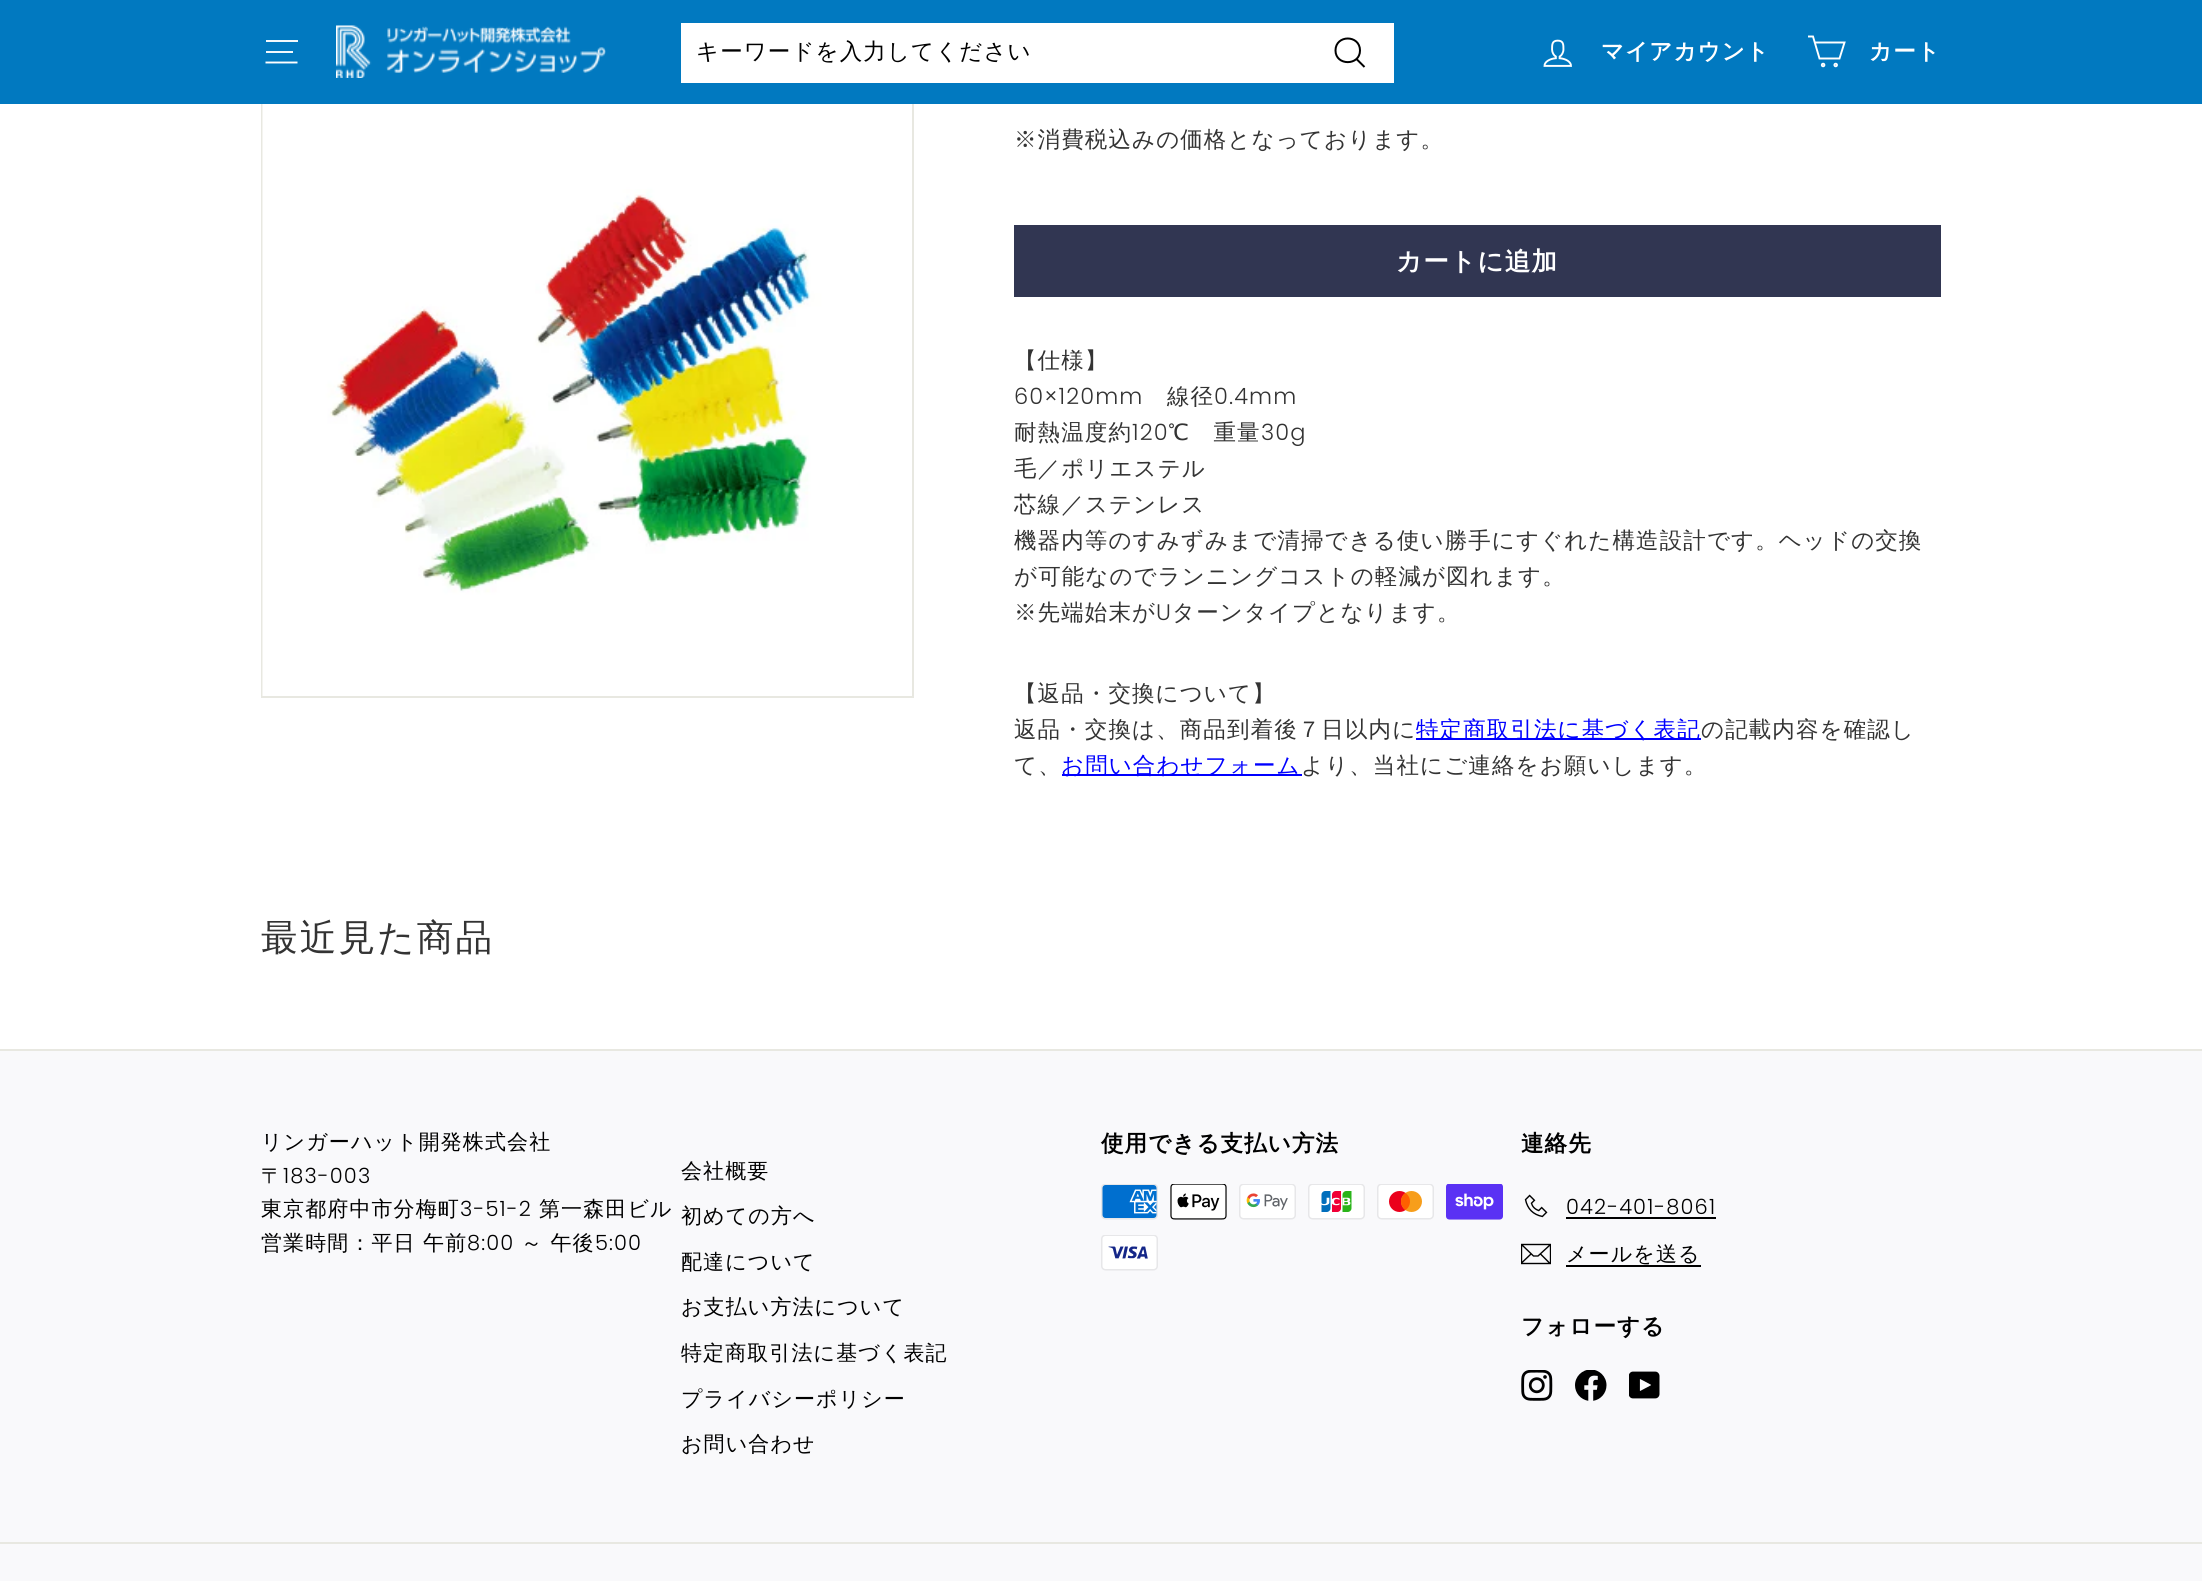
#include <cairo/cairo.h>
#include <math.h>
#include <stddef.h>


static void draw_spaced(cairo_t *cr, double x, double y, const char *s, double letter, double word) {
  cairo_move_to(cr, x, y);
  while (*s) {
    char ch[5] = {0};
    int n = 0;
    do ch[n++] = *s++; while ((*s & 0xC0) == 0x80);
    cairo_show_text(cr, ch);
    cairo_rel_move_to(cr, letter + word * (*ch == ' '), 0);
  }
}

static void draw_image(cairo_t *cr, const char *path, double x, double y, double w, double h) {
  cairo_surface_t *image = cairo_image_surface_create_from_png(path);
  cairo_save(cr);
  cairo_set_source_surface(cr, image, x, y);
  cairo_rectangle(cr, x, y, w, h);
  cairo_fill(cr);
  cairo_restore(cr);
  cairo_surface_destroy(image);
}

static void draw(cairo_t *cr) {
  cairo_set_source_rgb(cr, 1, 1, 1);
  cairo_paint(cr);
  cairo_rectangle(cr, 262, 46, 651, 651);
  cairo_set_source_rgb(cr, 232 / 255.0, 232 / 255.0, 225 / 255.0);
  cairo_stroke(cr);
  cairo_set_source_rgb(cr, 1 / 255.0, 121 / 255.0, 192 / 255.0);
  cairo_rectangle(cr, 0, 0, 2202, 104);
  cairo_fill(cr);
  cairo_set_source_rgb(cr, 242 / 255.0, 248 / 255.0, 252 / 255.0);
  cairo_rectangle(cr, 266, 40, 32, 2);
  cairo_fill(cr);
  cairo_rectangle(cr, 266, 51, 27, 2);
  cairo_fill(cr);
  cairo_new_path(cr);
  cairo_move_to(cr, 265.5, 62.5);
  cairo_line_to(cr, 297.5, 62.5);
  cairo_set_source_rgb(cr, 1, 1, 1);
  cairo_set_line_width(cr, 1.9);
  cairo_stroke(cr);
  draw_image(cr, "images/1.png", 336, 25, 270, 53);
  cairo_rectangle(cr, 681, 23, 713, 60);
  cairo_fill(cr);
  cairo_new_path(cr);
  cairo_move_to(cr, 1360, 50.5);
  cairo_curve_to(cr, 1360, 66, 1335.5, 66, 1335.5, 50.5);
  cairo_curve_to(cr, 1335.5, 34.5, 1360, 34.5, 1360, 50.5);
  cairo_close_path(cr);
  cairo_move_to(cr, 1364.5, 67);
  cairo_line_to(cr, 1356.5, 59);
  cairo_set_source_rgb(cr, 0, 0, 0);
  cairo_set_line_width(cr, 2);
  cairo_stroke(cr);
  draw_image(cr, "images/2.png", 1543, 39, 29, 28);
  cairo_new_path(cr);
  cairo_move_to(cr, 1815, 42.5);
  cairo_line_to(cr, 1844.5, 42.5);
  cairo_line_to(cr, 1839.5, 58.5);
  cairo_line_to(cr, 1819.5, 58.5);
  cairo_line_to(cr, 1813, 36.5);
  cairo_line_to(cr, 1808, 36.5);
  cairo_set_source_rgb(cr, 1, 1, 1);
  cairo_set_line_width(cr, 1.9);
  cairo_stroke(cr);
  cairo_arc(cr, 1823.1, 65, 1.3, 0, 2 * M_PI);
  cairo_stroke(cr);
  cairo_arc(cr, 1835.7, 65, 1.3, 0, 2 * M_PI);
  cairo_stroke(cr);
  draw_image(cr, "images/3.png", 262, 104, 650, 592);
  cairo_set_source_rgb(cr, 49 / 255.0, 54 / 255.0, 82 / 255.0);
  cairo_rectangle(cr, 1014, 225, 927, 72);
  cairo_fill(cr);
  cairo_set_source_rgb(cr, 0, 0, 1);
  cairo_rectangle(cr, 1416, 738, 285, 2);
  cairo_fill(cr);
  cairo_rectangle(cr, 1062, 774, 240, 2);
  cairo_fill(cr);
  cairo_set_source_rgb(cr, 249 / 255.0, 249 / 255.0, 251 / 255.0);
  cairo_rectangle(cr, 0, 1051, 2202, 530);
  cairo_fill(cr);
  cairo_set_source_rgb(cr, 232 / 255.0, 232 / 255.0, 225 / 255.0);
  cairo_rectangle(cr, 0, 1049, 2202, 2);
  cairo_fill(cr);
  draw_image(cr, "images/4.png", 1101, 1184, 57, 36);
  draw_image(cr, "images/5.png", 1170, 1184, 57, 36);
  draw_image(cr, "images/6.png", 1239, 1184, 57, 36);
  draw_image(cr, "images/7.png", 1308, 1184, 57, 36);
  draw_image(cr, "images/8.png", 1377, 1184, 57, 36);
  draw_image(cr, "images/9.png", 1446, 1184, 57, 36);
  draw_image(cr, "images/10.png", 1101, 1235, 57, 36);
  draw_image(cr, "images/11.png", 1524, 1194, 24, 24);
  cairo_set_source_rgb(cr, 0, 0, 0);
  cairo_rectangle(cr, 1566, 1217, 150, 2);
  cairo_fill(cr);
  cairo_save(cr);
  cairo_rectangle(cr, 1521, 1239, 30, 30);
  cairo_clip(cr);
  cairo_new_path(cr);
  cairo_move_to(cr, 1550.5, 1263.5);
  cairo_line_to(cr, 1521.5, 1263.5);
  cairo_line_to(cr, 1521.5, 1244.5);
  cairo_line_to(cr, 1550.5, 1244.5);
  cairo_close_path(cr);
  cairo_move_to(cr, 1521.5, 1244.5);
  cairo_line_to(cr, 1533.5, 1256);
  cairo_line_to(cr, 1538, 1256);
  cairo_line_to(cr, 1550.5, 1244.5);
  cairo_move_to(cr, 1531, 1254);
  cairo_line_to(cr, 1521.5, 1263);
  cairo_move_to(cr, 1550, 1263.5);
  cairo_line_to(cr, 1540.5, 1254);
  cairo_set_line_width(cr, 1.4);
  cairo_stroke(cr);
  cairo_restore(cr);
  cairo_rectangle(cr, 1566, 1265, 135, 2);
  cairo_fill(cr);
  draw_image(cr, "images/12.png", 1521, 1370, 32, 31);
  draw_image(cr, "images/13.png", 1575, 1370, 32, 31);
  draw_image(cr, "images/14.png", 1629, 1371, 31, 28);
  cairo_set_source_rgb(cr, 232 / 255.0, 232 / 255.0, 225 / 255.0);
  cairo_rectangle(cr, 0, 1542, 2202, 2);
  cairo_fill(cr);
  cairo_select_font_face(cr, "WenQuanYi Zen Hei Medium", CAIRO_FONT_SLANT_NORMAL, CAIRO_FONT_WEIGHT_NORMAL);
  cairo_set_font_size(cr, 22.5);
  cairo_set_source_rgb(cr, 0, 0, 0);
  draw_spaced(cr, 696, 59, "キーワードを入力してください", 1.1, 0);
  cairo_select_font_face(cr, "WenQuanYi Zen Hei", CAIRO_FONT_SLANT_NORMAL, CAIRO_FONT_WEIGHT_BOLD);
  cairo_set_source_rgb(cr, 1, 1, 1);
  draw_spaced(cr, 1601, 59, "マイアカウント", 1.1, 0);
  draw_spaced(cr, 1869, 59, "カート", 1.1, 0);
  cairo_select_font_face(cr, "WenQuanYi Zen Hei Medium", CAIRO_FONT_SLANT_NORMAL, CAIRO_FONT_WEIGHT_NORMAL);
  cairo_set_source_rgb(cr, 51 / 255.0, 51 / 255.0, 51 / 255.0);
  draw_spaced(cr, 1014, 147, "※消費税込みの価格となっております。", 1.1, 0);
  cairo_select_font_face(cr, "WenQuanYi Zen Hei", CAIRO_FONT_SLANT_NORMAL, CAIRO_FONT_WEIGHT_BOLD);
  cairo_set_font_size(cr, 25.5);
  cairo_set_source_rgb(cr, 1, 1, 1);
  draw_spaced(cr, 1396, 270, "カートに追加", 1.25, 0);
  cairo_select_font_face(cr, "WenQuanYi Zen Hei Medium", CAIRO_FONT_SLANT_NORMAL, CAIRO_FONT_WEIGHT_NORMAL);
  cairo_set_font_size(cr, 22.5);
  cairo_set_source_rgb(cr, 51 / 255.0, 51 / 255.0, 51 / 255.0);
  draw_spaced(cr, 1014, 368, "【仕様】", 1.1, 0);
  cairo_select_font_face(cr, "Poppins Light", CAIRO_FONT_SLANT_NORMAL, CAIRO_FONT_WEIGHT_NORMAL);
  draw_spaced(cr, 1014, 404, "60×120mm", 1.1, 0);
  cairo_select_font_face(cr, "WenQuanYi Zen Hei Medium", CAIRO_FONT_SLANT_NORMAL, CAIRO_FONT_WEIGHT_NORMAL);
  draw_spaced(cr, 1167, 404, "線径", 1.1, 0);
  cairo_select_font_face(cr, "Poppins Light", CAIRO_FONT_SLANT_NORMAL, CAIRO_FONT_WEIGHT_NORMAL);
  draw_spaced(cr, 1214, 404, "0.4mm", 1.1, 0);
  cairo_select_font_face(cr, "WenQuanYi Zen Hei Medium", CAIRO_FONT_SLANT_NORMAL, CAIRO_FONT_WEIGHT_NORMAL);
  draw_spaced(cr, 1014, 440, "耐熱温度約", 1.1, 0);
  cairo_select_font_face(cr, "Poppins Light", CAIRO_FONT_SLANT_NORMAL, CAIRO_FONT_WEIGHT_NORMAL);
  draw_spaced(cr, 1132, 440, "120", 1.1, 0);
  cairo_select_font_face(cr, "WenQuanYi Zen Hei Medium", CAIRO_FONT_SLANT_NORMAL, CAIRO_FONT_WEIGHT_NORMAL);
  draw_spaced(cr, 1168, 440, "℃　重量", 1.1, 0);
  cairo_select_font_face(cr, "Poppins Light", CAIRO_FONT_SLANT_NORMAL, CAIRO_FONT_WEIGHT_NORMAL);
  draw_spaced(cr, 1261, 440, "30g", 1.1, 0);
  cairo_select_font_face(cr, "WenQuanYi Zen Hei Medium", CAIRO_FONT_SLANT_NORMAL, CAIRO_FONT_WEIGHT_NORMAL);
  draw_spaced(cr, 1014, 476, "毛／ポリエステル", 1.1, 0);
  draw_spaced(cr, 1014, 512, "芯線／ステンレス", 1.1, 0);
  draw_spaced(cr, 1014, 548, "機器内等のすみずみまで清掃できる使い勝手にすぐれた構造設計です。ヘッドの交換", 1.1, 0);
  draw_spaced(cr, 1014, 584, "が可能なのでランニングコストの軽減が図れます。", 1.1, 0);
  draw_spaced(cr, 1014, 620, "※先端始末が", 1.1, 0);
  cairo_select_font_face(cr, "Poppins Light", CAIRO_FONT_SLANT_NORMAL, CAIRO_FONT_WEIGHT_NORMAL);
  draw_spaced(cr, 1156, 620, "U", 1.1, 0);
  cairo_select_font_face(cr, "WenQuanYi Zen Hei Medium", CAIRO_FONT_SLANT_NORMAL, CAIRO_FONT_WEIGHT_NORMAL);
  draw_spaced(cr, 1172, 620, "ターンタイプとなります。", 1.1, 0);
  draw_spaced(cr, 1014, 701, "【返品・交換について】", 1.1, 0);
  draw_spaced(cr, 1014, 737, "返品・交換は、商品到着後７日以内に", 1.1, 0);
  cairo_set_source_rgb(cr, 0, 0, 1);
  draw_spaced(cr, 1416, 737, "特定商取引法に基づく表記", 1.1, 0);
  cairo_set_source_rgb(cr, 51 / 255.0, 51 / 255.0, 51 / 255.0);
  draw_spaced(cr, 1701, 737, "の記載内容を確認し", 1.1, 0);
  draw_spaced(cr, 1014, 773, "て、", 1.1, 0);
  cairo_set_source_rgb(cr, 0, 0, 1);
  draw_spaced(cr, 1061, 773, "お問い合わせフォーム", 1.1, 0);
  cairo_set_source_rgb(cr, 51 / 255.0, 51 / 255.0, 51 / 255.0);
  draw_spaced(cr, 1301, 773, "より、当社にご連絡をお願いします。", 1.1, 0);
  cairo_set_font_size(cr, 36.75);
  draw_spaced(cr, 261, 950, "最近見た商品", 2, 0);
  cairo_set_font_size(cr, 21);
  cairo_set_source_rgb(cr, 0, 0, 0);
  draw_spaced(cr, 261, 1149, "リンガーハット開発株式会社", 1.1, 0);
  draw_spaced(cr, 261, 1183, "〒", 1.1, 0);
  cairo_select_font_face(cr, "Poppins Light", CAIRO_FONT_SLANT_NORMAL, CAIRO_FONT_WEIGHT_NORMAL);
  draw_spaced(cr, 283, 1183, "183-003", 1.1, 0);
  cairo_select_font_face(cr, "WenQuanYi Zen Hei Medium", CAIRO_FONT_SLANT_NORMAL, CAIRO_FONT_WEIGHT_NORMAL);
  draw_spaced(cr, 261, 1216, "東京都府中市分梅町", 1.1, 0);
  cairo_select_font_face(cr, "Poppins Light", CAIRO_FONT_SLANT_NORMAL, CAIRO_FONT_WEIGHT_NORMAL);
  draw_spaced(cr, 460, 1216, "3-51-2", 1.1, 0);
  cairo_select_font_face(cr, "WenQuanYi Zen Hei Medium", CAIRO_FONT_SLANT_NORMAL, CAIRO_FONT_WEIGHT_NORMAL);
  draw_spaced(cr, 539, 1216, "第一森田ビル", 1.1, 0);
  draw_spaced(cr, 261, 1250, "営業時間：平日 午前", 1.1, 0);
  cairo_select_font_face(cr, "Poppins Light", CAIRO_FONT_SLANT_NORMAL, CAIRO_FONT_WEIGHT_NORMAL);
  draw_spaced(cr, 467, 1250, "8:00", 1.1, 0);
  cairo_select_font_face(cr, "WenQuanYi Zen Hei Medium", CAIRO_FONT_SLANT_NORMAL, CAIRO_FONT_WEIGHT_NORMAL);
  draw_spaced(cr, 521, 1250, "～ 午後", 1.1, 0);
  cairo_select_font_face(cr, "Poppins Light", CAIRO_FONT_SLANT_NORMAL, CAIRO_FONT_WEIGHT_NORMAL);
  draw_spaced(cr, 595, 1250, "5:00", 1.1, 0);
  cairo_select_font_face(cr, "WenQuanYi Zen Hei Medium", CAIRO_FONT_SLANT_NORMAL, CAIRO_FONT_WEIGHT_NORMAL);
  draw_spaced(cr, 681, 1178, "会社概要", 1.1, 0);
  draw_spaced(cr, 681, 1223, "初めての方へ", 1.1, 0);
  draw_spaced(cr, 681, 1269, "配達について", 1.1, 0);
  draw_spaced(cr, 681, 1314, "お支払い方法について", 1.1, 0);
  draw_spaced(cr, 681, 1360, "特定商取引法に基づく表記", 1.1, 0);
  draw_spaced(cr, 681, 1406, "プライバシーポリシー", 1.1, 0);
  draw_spaced(cr, 681, 1451, "お問い合わせ", 1.1, 0);
  cairo_select_font_face(cr, "WenQuanYi Zen Hei", CAIRO_FONT_SLANT_NORMAL, CAIRO_FONT_WEIGHT_BOLD);
  cairo_set_font_size(cr, 22.5);
  draw_spaced(cr, 1101, 1151, "使用できる支払い方法", 1.1, 0);
  draw_spaced(cr, 1521, 1151, "連絡先", 1.1, 0);
  cairo_select_font_face(cr, "Poppins Light", CAIRO_FONT_SLANT_NORMAL, CAIRO_FONT_WEIGHT_NORMAL);
  cairo_set_font_size(cr, 21);
  draw_spaced(cr, 1566, 1214, "042-401-8061", 1.1, 0);
  cairo_select_font_face(cr, "WenQuanYi Zen Hei Medium", CAIRO_FONT_SLANT_NORMAL, CAIRO_FONT_WEIGHT_NORMAL);
  draw_spaced(cr, 1566, 1261, "メールを送る", 1.1, 0);
  cairo_select_font_face(cr, "WenQuanYi Zen Hei", CAIRO_FONT_SLANT_NORMAL, CAIRO_FONT_WEIGHT_BOLD);
  cairo_set_font_size(cr, 22.5);
  draw_spaced(cr, 1521, 1334, "フォローする", 1.1, 0);
}

int main(void) {
  cairo_surface_t *surface = cairo_image_surface_create(CAIRO_FORMAT_RGB24, 2202, 1581);
  cairo_t *cr = cairo_create(surface);
  cairo_font_options_t *options = cairo_font_options_create();
  cairo_font_options_set_hint_metrics(options, CAIRO_HINT_METRICS_OFF);
  cairo_font_options_set_hint_style(options, CAIRO_HINT_STYLE_NONE);
  cairo_set_font_options(cr, options);
  cairo_set_miter_limit(cr, 4);
  draw(cr);
  cairo_surface_write_to_png(surface, "out.png");
  cairo_font_options_destroy(options);
  cairo_destroy(cr);
  cairo_surface_destroy(surface);
  return 0;
}
